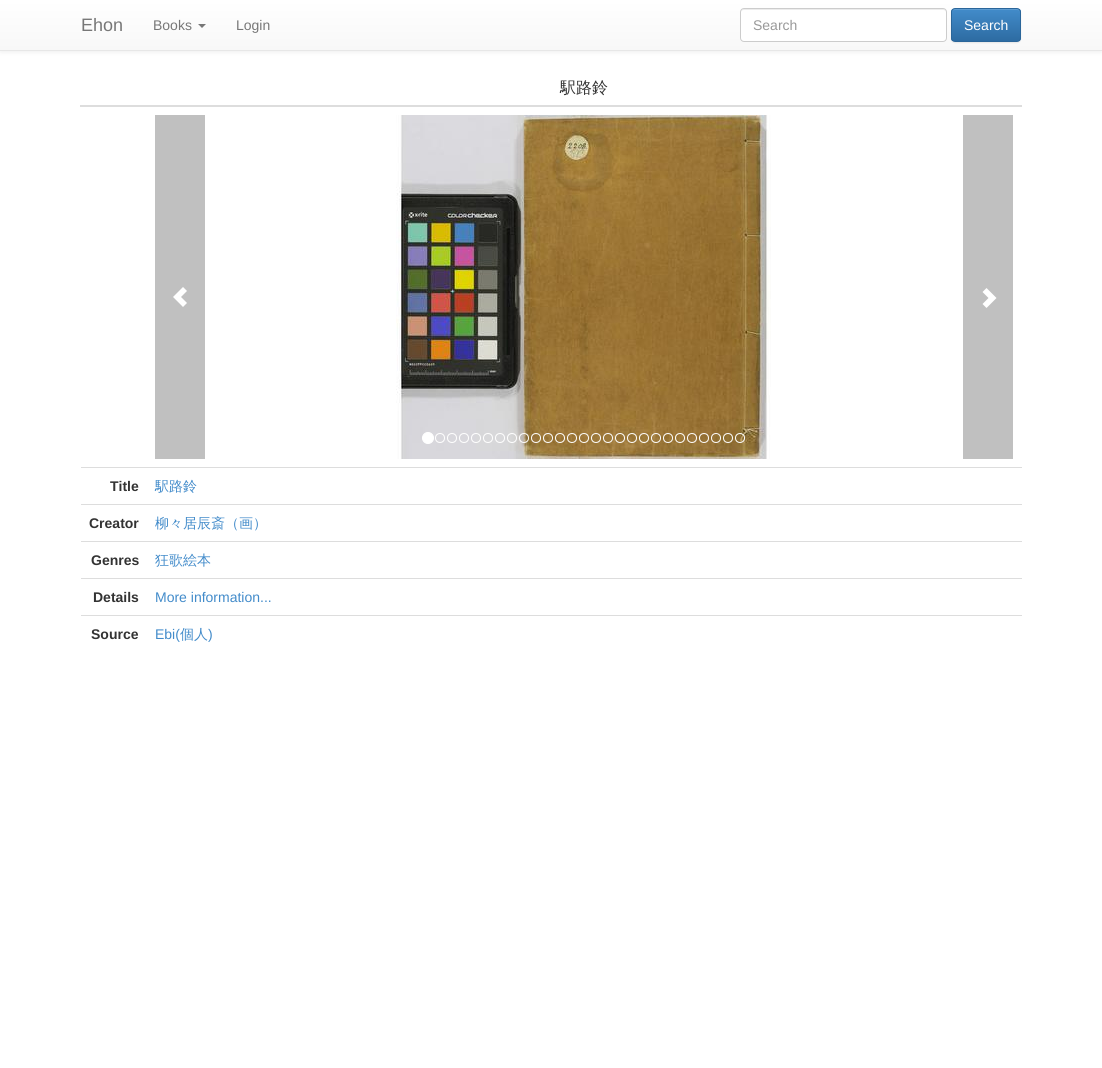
#include <cairo/cairo.h>
#include <math.h>
#include <stddef.h>


static void rounded_rect(cairo_t *cr, double x, double y, double w, double h, double r) {
  cairo_new_sub_path(cr);
  cairo_arc(cr, x + w - r, y + h - r, r, 0, M_PI / 2);
  cairo_arc(cr, x + r, y + h - r, r, M_PI / 2, M_PI);
  cairo_arc(cr, x + r, y + r, r, M_PI, 1.5 * M_PI);
  cairo_arc(cr, x + w - r, y + r, r, 1.5 * M_PI, 2 * M_PI);
  cairo_close_path(cr);
}

static void draw_shadow(cairo_t *cr, double x, double y, double w, double h, double r, double blur, double alpha) {
  cairo_push_group_with_content(cr, CAIRO_CONTENT_ALPHA);
  cairo_set_operator(cr, CAIRO_OPERATOR_SOURCE);
  for (int i = 15; i >= -15 && fmin(w, h) + blur * i / 3 > 0; i -= 2) {
    double e = blur * i / 6;
    cairo_set_source_rgba(cr, 0, 0, 0, alpha * erfc((i - 1) / 8.5) / 2);
    rounded_rect(cr, x - e, y - e, w + 2 * e, h + 2 * e, fmax(0, fmin(r + e + blur * .6, fmin(w, h) / 2 + e)));
    cairo_fill(cr);
  }
  cairo_pattern_t *soft = cairo_pop_group(cr);
  cairo_mask(cr, soft);
  cairo_pattern_destroy(soft);
}

static void draw_image(cairo_t *cr, const char *path, double x, double y, double w, double h) {
  cairo_surface_t *image = cairo_image_surface_create_from_png(path);
  cairo_save(cr);
  cairo_set_source_surface(cr, image, x, y);
  cairo_rectangle(cr, x, y, w, h);
  cairo_fill(cr);
  cairo_restore(cr);
  cairo_surface_destroy(image);
}

static void draw(cairo_t *cr) {
  cairo_pattern_t *gradient;
  cairo_set_source_rgb(cr, 1, 1, 1);
  cairo_paint(cr);
  cairo_set_source_rgb(cr, 0, 0, 0);
  draw_shadow(cr, 0, 1, 1102, 51, 0, 2.5, 0.07);
  gradient = cairo_pattern_create_linear(551, 0, 551, 50);
  cairo_pattern_add_color_stop_rgba(gradient, 0, 1, 1, 1, 1);
  cairo_pattern_add_color_stop_rgba(gradient, 1, 248 / 255.0, 248 / 255.0, 248 / 255.0, 1);
  cairo_set_source(cr, gradient);
  cairo_pattern_destroy(gradient);
  cairo_rectangle(cr, 0, 0, 1102, 50);
  cairo_fill(cr);
  cairo_set_source_rgb(cr, 231 / 255.0, 231 / 255.0, 231 / 255.0);
  cairo_rectangle(cr, 0, 50, 1102, 1);
  cairo_fill(cr);
  cairo_set_source_rgb(cr, 119 / 255.0, 119 / 255.0, 119 / 255.0);
  cairo_new_path(cr);
  cairo_move_to(cr, 198, 24);
  cairo_line_to(cr, 206, 24);
  cairo_line_to(cr, 202, 28);
  cairo_close_path(cr);
  cairo_fill(cr);
  cairo_set_source_rgb(cr, 1, 1, 1);
  rounded_rect(cr, 740, 8, 207, 34, 4);
  cairo_fill(cr);
  cairo_set_source_rgb(cr, 236 / 255.0, 236 / 255.0, 236 / 255.0);
  cairo_new_path(cr);
  cairo_move_to(cr, 744, 10);
  cairo_line_to(cr, 943, 10);
  cairo_curve_to(cr, 945, 10, 946, 11, 946, 13);
  cairo_curve_to(cr, 946, 11, 945, 9, 943, 9);
  cairo_line_to(cr, 744, 9);
  cairo_curve_to(cr, 742, 9, 741, 11, 741, 13);
  cairo_curve_to(cr, 741, 11, 742, 10, 744, 10);
  cairo_close_path(cr);
  cairo_fill(cr);
  rounded_rect(cr, 740.5, 8.5, 206, 33, 3.5);
  cairo_set_source_rgb(cr, 204 / 255.0, 204 / 255.0, 204 / 255.0);
  cairo_set_line_width(cr, 1);
  cairo_stroke(cr);
  cairo_set_source_rgb(cr, 0, 0, 0);
  draw_shadow(cr, 951, 9, 70, 34, 4, 0.5, 0.07);
  cairo_save(cr);
  rounded_rect(cr, 951, 8, 70, 34, 4);
  cairo_clip(cr);
  gradient = cairo_pattern_create_linear(986, 9, 986, 41);
  cairo_pattern_add_color_stop_rgba(gradient, 0, 66 / 255.0, 139 / 255.0, 202 / 255.0, 1);
  cairo_pattern_add_color_stop_rgba(gradient, 1, 45 / 255.0, 108 / 255.0, 162 / 255.0, 1);
  cairo_set_source(cr, gradient);
  cairo_pattern_destroy(gradient);
  cairo_rectangle(cr, 951, 9, 70, 32);
  cairo_fill(cr);
  cairo_restore(cr);
  cairo_set_source_rgb(cr, 94 / 255.0, 156 / 255.0, 209 / 255.0);
  cairo_new_path(cr);
  cairo_move_to(cr, 955, 10);
  cairo_line_to(cr, 1017, 10);
  cairo_curve_to(cr, 1019, 10, 1020, 11, 1020, 13);
  cairo_curve_to(cr, 1020, 6, 1011, 9, 1007, 9);
  cairo_line_to(cr, 965, 9);
  cairo_curve_to(cr, 961, 9, 952, 6, 952, 13);
  cairo_curve_to(cr, 952, 11, 953, 10, 955, 10);
  cairo_close_path(cr);
  cairo_fill(cr);
  rounded_rect(cr, 951.5, 8.5, 69, 33, 3.5);
  cairo_set_source_rgb(cr, 43 / 255.0, 102 / 255.0, 154 / 255.0);
  cairo_stroke(cr);
  cairo_set_source_rgb(cr, 221 / 255.0, 221 / 255.0, 221 / 255.0);
  cairo_rectangle(cr, 80, 105, 942, 2);
  cairo_fill(cr);
  cairo_set_source_rgb(cr, 192 / 255.0, 192 / 255.0, 192 / 255.0);
  cairo_rectangle(cr, 155, 115, 50, 344);
  cairo_fill(cr);
  cairo_set_source_rgb(cr, 1, 1, 1);
  cairo_new_path(cr);
  cairo_move_to(cr, 173, 297);
  cairo_line_to(cr, 183, 307);
  cairo_line_to(cr, 187, 303);
  cairo_line_to(cr, 181, 297);
  cairo_line_to(cr, 187, 291);
  cairo_line_to(cr, 183, 287);
  cairo_close_path(cr);
  cairo_fill(cr);
  draw_image(cr, "images/1.png", 396, 115, 375, 344);
  cairo_arc(cr, 428, 438, 5.5, 0, 2 * M_PI);
  cairo_fill_preserve(cr);
  cairo_stroke(cr);
  cairo_arc(cr, 440, 438, 4.5, 0, 2 * M_PI);
  cairo_stroke(cr);
  cairo_arc(cr, 452, 438, 4.5, 0, 2 * M_PI);
  cairo_stroke(cr);
  cairo_arc(cr, 464, 438, 4.5, 0, 2 * M_PI);
  cairo_stroke(cr);
  cairo_arc(cr, 476, 438, 4.5, 0, 2 * M_PI);
  cairo_stroke(cr);
  cairo_arc(cr, 488, 438, 4.5, 0, 2 * M_PI);
  cairo_stroke(cr);
  cairo_arc(cr, 500, 438, 4.5, 0, 2 * M_PI);
  cairo_stroke(cr);
  cairo_arc(cr, 512, 438, 4.5, 0, 2 * M_PI);
  cairo_stroke(cr);
  cairo_arc(cr, 524, 438, 4.5, 0, 2 * M_PI);
  cairo_stroke(cr);
  cairo_arc(cr, 536, 438, 4.5, 0, 2 * M_PI);
  cairo_stroke(cr);
  cairo_arc(cr, 548, 438, 4.5, 0, 2 * M_PI);
  cairo_stroke(cr);
  cairo_arc(cr, 560, 438, 4.5, 0, 2 * M_PI);
  cairo_stroke(cr);
  cairo_arc(cr, 572, 438, 4.5, 0, 2 * M_PI);
  cairo_stroke(cr);
  cairo_arc(cr, 584, 438, 4.5, 0, 2 * M_PI);
  cairo_stroke(cr);
  cairo_arc(cr, 596, 438, 4.5, 0, 2 * M_PI);
  cairo_stroke(cr);
  cairo_arc(cr, 608, 438, 4.5, 0, 2 * M_PI);
  cairo_stroke(cr);
  cairo_arc(cr, 620, 438, 4.5, 0, 2 * M_PI);
  cairo_stroke(cr);
  cairo_arc(cr, 632, 438, 4.5, 0, 2 * M_PI);
  cairo_stroke(cr);
  cairo_arc(cr, 644, 438, 4.5, 0, 2 * M_PI);
  cairo_stroke(cr);
  cairo_arc(cr, 656, 438, 4.5, 0, 2 * M_PI);
  cairo_stroke(cr);
  cairo_arc(cr, 668, 438, 4.5, 0, 2 * M_PI);
  cairo_stroke(cr);
  cairo_arc(cr, 680, 438, 4.5, 0, 2 * M_PI);
  cairo_stroke(cr);
  cairo_arc(cr, 692, 438, 4.5, 0, 2 * M_PI);
  cairo_stroke(cr);
  cairo_arc(cr, 704, 438, 4.5, 0, 2 * M_PI);
  cairo_stroke(cr);
  cairo_arc(cr, 716, 438, 4.5, 0, 2 * M_PI);
  cairo_stroke(cr);
  cairo_arc(cr, 728, 438, 4.5, 0, 2 * M_PI);
  cairo_stroke(cr);
  cairo_arc(cr, 740, 438, 4.5, 0, 2 * M_PI);
  cairo_stroke(cr);
  cairo_set_source_rgb(cr, 192 / 255.0, 192 / 255.0, 192 / 255.0);
  cairo_rectangle(cr, 963, 115, 50, 344);
  cairo_fill(cr);
  cairo_set_source_rgb(cr, 1, 1, 1);
  cairo_new_path(cr);
  cairo_move_to(cr, 982.5, 304);
  cairo_line_to(cr, 988.5, 298);
  cairo_line_to(cr, 982.5, 292);
  cairo_line_to(cr, 986.5, 288);
  cairo_line_to(cr, 996.5, 298);
  cairo_line_to(cr, 986.5, 308);
  cairo_close_path(cr);
  cairo_fill(cr);
  cairo_set_source_rgb(cr, 221 / 255.0, 221 / 255.0, 221 / 255.0);
  cairo_rectangle(cr, 81, 467, 941, 1);
  cairo_fill(cr);
  cairo_rectangle(cr, 81, 504, 941, 1);
  cairo_fill(cr);
  cairo_rectangle(cr, 81, 541, 941, 1);
  cairo_fill(cr);
  cairo_rectangle(cr, 81, 578, 941, 1);
  cairo_fill(cr);
  cairo_rectangle(cr, 81, 615, 941, 1);
  cairo_fill(cr);
  cairo_select_font_face(cr, "Liberation Sans", CAIRO_FONT_SLANT_NORMAL, CAIRO_FONT_WEIGHT_NORMAL);
  cairo_set_font_size(cr, 18);
  cairo_set_source_rgb(cr, 119 / 255.0, 119 / 255.0, 119 / 255.0);
  cairo_move_to(cr, 81, 31);
  cairo_show_text(cr, "Ehon");
  cairo_set_font_size(cr, 14);
  cairo_move_to(cr, 153, 30);
  cairo_show_text(cr, "Books");
  cairo_move_to(cr, 236, 30);
  cairo_show_text(cr, "Login");
  cairo_set_source_rgb(cr, 153 / 255.0, 153 / 255.0, 153 / 255.0);
  cairo_move_to(cr, 753, 30);
  cairo_show_text(cr, "Search");
  cairo_set_source_rgb(cr, 1, 1, 1);
  cairo_move_to(cr, 964, 30);
  cairo_show_text(cr, "Search");
  cairo_select_font_face(cr, "WenQuanYi Zen Hei Medium", CAIRO_FONT_SLANT_NORMAL, CAIRO_FONT_WEIGHT_NORMAL);
  cairo_set_font_size(cr, 16);
  cairo_set_source_rgb(cr, 51 / 255.0, 51 / 255.0, 51 / 255.0);
  cairo_move_to(cr, 560, 93);
  cairo_show_text(cr, "駅路鈴");
  cairo_select_font_face(cr, "Liberation Sans", CAIRO_FONT_SLANT_NORMAL, CAIRO_FONT_WEIGHT_BOLD);
  cairo_set_font_size(cr, 14);
  cairo_move_to(cr, 110, 491);
  cairo_show_text(cr, "Title");
  cairo_select_font_face(cr, "WenQuanYi Zen Hei Medium", CAIRO_FONT_SLANT_NORMAL, CAIRO_FONT_WEIGHT_NORMAL);
  cairo_set_source_rgb(cr, 66 / 255.0, 139 / 255.0, 202 / 255.0);
  cairo_move_to(cr, 155, 491);
  cairo_show_text(cr, "駅路鈴");
  cairo_select_font_face(cr, "Liberation Sans", CAIRO_FONT_SLANT_NORMAL, CAIRO_FONT_WEIGHT_BOLD);
  cairo_set_source_rgb(cr, 51 / 255.0, 51 / 255.0, 51 / 255.0);
  cairo_move_to(cr, 89, 528);
  cairo_show_text(cr, "Creator");
  cairo_select_font_face(cr, "WenQuanYi Zen Hei Medium", CAIRO_FONT_SLANT_NORMAL, CAIRO_FONT_WEIGHT_NORMAL);
  cairo_set_source_rgb(cr, 66 / 255.0, 139 / 255.0, 202 / 255.0);
  cairo_move_to(cr, 155, 528);
  cairo_show_text(cr, "柳々居辰斎（画）");
  cairo_select_font_face(cr, "Liberation Sans", CAIRO_FONT_SLANT_NORMAL, CAIRO_FONT_WEIGHT_BOLD);
  cairo_set_source_rgb(cr, 51 / 255.0, 51 / 255.0, 51 / 255.0);
  cairo_move_to(cr, 91, 565);
  cairo_show_text(cr, "Genres");
  cairo_select_font_face(cr, "WenQuanYi Zen Hei Medium", CAIRO_FONT_SLANT_NORMAL, CAIRO_FONT_WEIGHT_NORMAL);
  cairo_set_source_rgb(cr, 66 / 255.0, 139 / 255.0, 202 / 255.0);
  cairo_move_to(cr, 155, 565);
  cairo_show_text(cr, "狂歌絵本");
  cairo_select_font_face(cr, "Liberation Sans", CAIRO_FONT_SLANT_NORMAL, CAIRO_FONT_WEIGHT_BOLD);
  cairo_set_source_rgb(cr, 51 / 255.0, 51 / 255.0, 51 / 255.0);
  cairo_move_to(cr, 93, 602);
  cairo_show_text(cr, "Details");
  cairo_select_font_face(cr, "Liberation Sans", CAIRO_FONT_SLANT_NORMAL, CAIRO_FONT_WEIGHT_NORMAL);
  cairo_set_source_rgb(cr, 66 / 255.0, 139 / 255.0, 202 / 255.0);
  cairo_move_to(cr, 155, 602);
  cairo_show_text(cr, "More information...");
  cairo_select_font_face(cr, "Liberation Sans", CAIRO_FONT_SLANT_NORMAL, CAIRO_FONT_WEIGHT_BOLD);
  cairo_set_source_rgb(cr, 51 / 255.0, 51 / 255.0, 51 / 255.0);
  cairo_move_to(cr, 91, 639);
  cairo_show_text(cr, "Source");
  cairo_select_font_face(cr, "Liberation Sans", CAIRO_FONT_SLANT_NORMAL, CAIRO_FONT_WEIGHT_NORMAL);
  cairo_set_source_rgb(cr, 66 / 255.0, 139 / 255.0, 202 / 255.0);
  cairo_move_to(cr, 155, 639);
  cairo_show_text(cr, "Ebi(");
  cairo_select_font_face(cr, "WenQuanYi Zen Hei Medium", CAIRO_FONT_SLANT_NORMAL, CAIRO_FONT_WEIGHT_NORMAL);
  cairo_move_to(cr, 180, 639);
  cairo_show_text(cr, "個人");
  cairo_select_font_face(cr, "Liberation Sans", CAIRO_FONT_SLANT_NORMAL, CAIRO_FONT_WEIGHT_NORMAL);
  cairo_move_to(cr, 208, 639);
  cairo_show_text(cr, ")");
}

int main(void) {
  cairo_surface_t *surface = cairo_image_surface_create(CAIRO_FORMAT_RGB24, 1102, 1068);
  cairo_t *cr = cairo_create(surface);
  cairo_font_options_t *options = cairo_font_options_create();
  cairo_font_options_set_hint_metrics(options, CAIRO_HINT_METRICS_OFF);
  cairo_font_options_set_hint_style(options, CAIRO_HINT_STYLE_NONE);
  cairo_set_font_options(cr, options);
  cairo_set_miter_limit(cr, 4);
  draw(cr);
  cairo_surface_write_to_png(surface, "out.png");
  cairo_font_options_destroy(options);
  cairo_destroy(cr);
  cairo_surface_destroy(surface);
  return 0;
}
